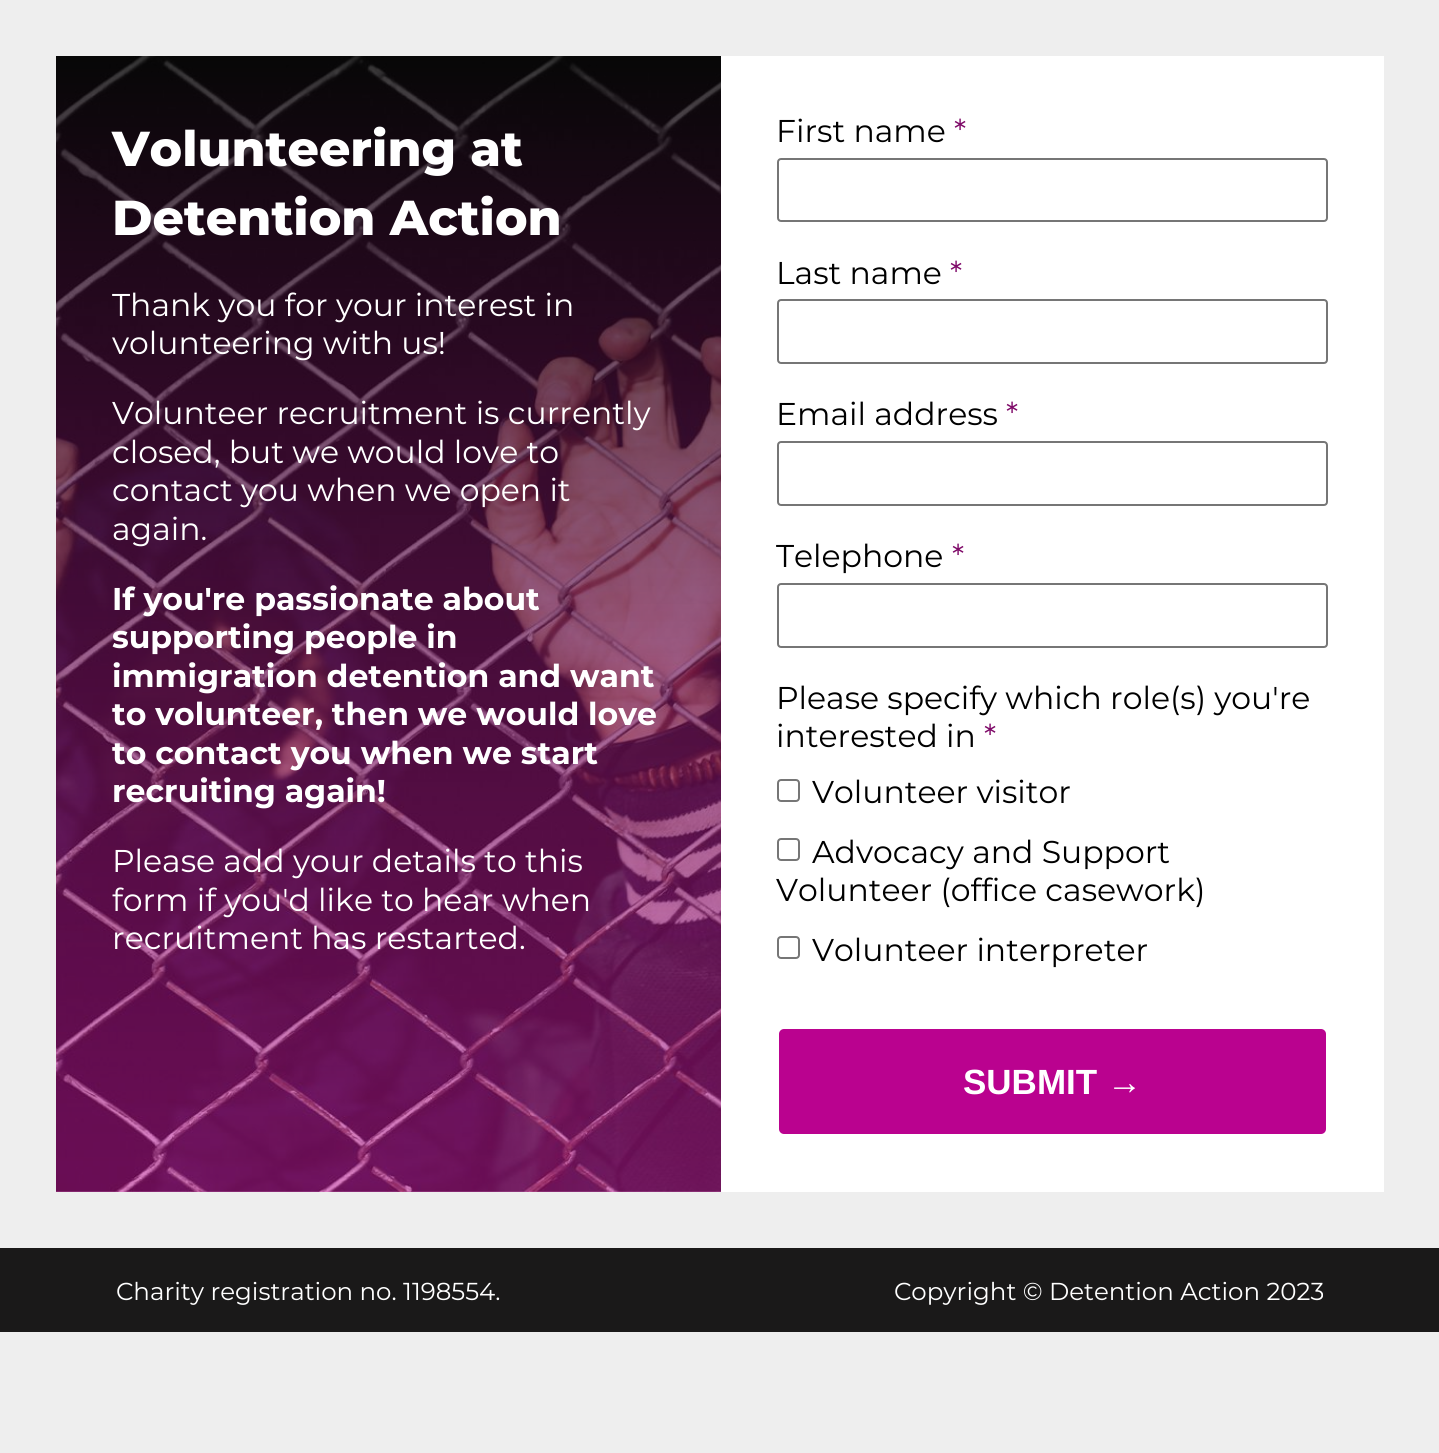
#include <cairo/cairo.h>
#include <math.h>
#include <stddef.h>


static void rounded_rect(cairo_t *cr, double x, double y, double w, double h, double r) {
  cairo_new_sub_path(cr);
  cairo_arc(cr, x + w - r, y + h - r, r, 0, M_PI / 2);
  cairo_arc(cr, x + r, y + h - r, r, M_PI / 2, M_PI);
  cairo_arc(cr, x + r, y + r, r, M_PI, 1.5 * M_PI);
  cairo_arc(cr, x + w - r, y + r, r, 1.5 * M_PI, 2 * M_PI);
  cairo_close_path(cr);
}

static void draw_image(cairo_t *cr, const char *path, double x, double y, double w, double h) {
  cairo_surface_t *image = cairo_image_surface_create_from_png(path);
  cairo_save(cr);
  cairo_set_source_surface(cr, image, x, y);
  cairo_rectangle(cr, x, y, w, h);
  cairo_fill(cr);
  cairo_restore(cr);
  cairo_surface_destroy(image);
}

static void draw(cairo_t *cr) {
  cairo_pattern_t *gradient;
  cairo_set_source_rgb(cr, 238 / 255.0, 238 / 255.0, 238 / 255.0);
  cairo_paint(cr);
  draw_image(cr, "images/1.png", 56, 56, 665, 1136);
  gradient = cairo_pattern_create_linear(388, 56, 389, 1192);
  cairo_pattern_add_color_stop_rgba(gradient, 0, 0, 0, 0, 0.75);
  cairo_pattern_add_color_stop_rgba(gradient, 1, 186 / 255.0, 2 / 255.0, 143 / 255.0, 0.5);
  cairo_set_source(cr, gradient);
  cairo_pattern_destroy(gradient);
  cairo_rectangle(cr, 56, 56, 665, 1136);
  cairo_fill(cr);
  cairo_set_source_rgb(cr, 1, 1, 1);
  cairo_rectangle(cr, 721, 56, 663, 1136);
  cairo_fill(cr);
  rounded_rect(cr, 778, 159, 549, 62, 3);
  cairo_set_source_rgb(cr, 118 / 255.0, 118 / 255.0, 118 / 255.0);
  cairo_stroke(cr);
  rounded_rect(cr, 778, 300, 549, 63, 3);
  cairo_stroke(cr);
  rounded_rect(cr, 778, 442, 549, 63, 3);
  cairo_stroke(cr);
  rounded_rect(cr, 778, 584, 549, 63, 3);
  cairo_stroke(cr);
  rounded_rect(cr, 778, 780, 21, 21, 3);
  cairo_stroke(cr);
  rounded_rect(cr, 778, 839, 21, 21, 3);
  cairo_stroke(cr);
  rounded_rect(cr, 778, 937, 21, 21, 3);
  cairo_stroke(cr);
  cairo_set_source_rgb(cr, 186 / 255.0, 2 / 255.0, 143 / 255.0);
  rounded_rect(cr, 778, 1028, 549, 107, 6);
  cairo_fill_preserve(cr);
  cairo_set_source_rgb(cr, 1, 1, 1);
  cairo_stroke(cr);
  cairo_set_source_rgb(cr, 26 / 255.0, 25 / 255.0, 25 / 255.0);
  cairo_rectangle(cr, 0, 1248, 1439, 84);
  cairo_fill(cr);
  cairo_select_font_face(cr, "Montserrat ExtraBold", CAIRO_FONT_SLANT_NORMAL, CAIRO_FONT_WEIGHT_NORMAL);
  cairo_set_font_size(cr, 49);
  cairo_set_source_rgb(cr, 1, 1, 1);
  cairo_move_to(cr, 112, 166);
  cairo_show_text(cr, "Volunteering at");
  cairo_move_to(cr, 112, 235);
  cairo_show_text(cr, "Detention Action");
  cairo_select_font_face(cr, "Montserrat", CAIRO_FONT_SLANT_NORMAL, CAIRO_FONT_WEIGHT_NORMAL);
  cairo_set_font_size(cr, 31.5);
  cairo_move_to(cr, 112, 316);
  cairo_show_text(cr, "Thank you for your interest in");
  cairo_move_to(cr, 112, 354);
  cairo_show_text(cr, "volunteering with us!");
  cairo_move_to(cr, 112, 424);
  cairo_show_text(cr, "Volunteer recruitment is currently");
  cairo_move_to(cr, 112, 463);
  cairo_show_text(cr, "closed, but we would love to");
  cairo_move_to(cr, 112, 501);
  cairo_show_text(cr, "contact you when we open it");
  cairo_move_to(cr, 112, 540);
  cairo_show_text(cr, "again.");
  cairo_select_font_face(cr, "Montserrat", CAIRO_FONT_SLANT_NORMAL, CAIRO_FONT_WEIGHT_BOLD);
  cairo_move_to(cr, 112, 610);
  cairo_show_text(cr, "If you're passionate about");
  cairo_move_to(cr, 112, 648);
  cairo_show_text(cr, "supporting people in");
  cairo_move_to(cr, 112, 687);
  cairo_show_text(cr, "immigration detention and want");
  cairo_move_to(cr, 112, 725);
  cairo_show_text(cr, "to volunteer, then we would love");
  cairo_move_to(cr, 112, 764);
  cairo_show_text(cr, "to contact you when we start");
  cairo_move_to(cr, 112, 802);
  cairo_show_text(cr, "recruiting again!");
  cairo_select_font_face(cr, "Montserrat", CAIRO_FONT_SLANT_NORMAL, CAIRO_FONT_WEIGHT_NORMAL);
  cairo_move_to(cr, 112, 872);
  cairo_show_text(cr, "Please add your details to this");
  cairo_move_to(cr, 112, 911);
  cairo_show_text(cr, "form if you'd like to hear when");
  cairo_move_to(cr, 112, 949);
  cairo_show_text(cr, "recruitment has restarted.");
  cairo_set_source_rgb(cr, 0, 0, 0);
  cairo_move_to(cr, 776, 142);
  cairo_show_text(cr, "First name");
  cairo_set_source_rgb(cr, 127 / 255.0, 10 / 255.0, 105 / 255.0);
  cairo_move_to(cr, 954, 142);
  cairo_show_text(cr, "*");
  cairo_set_source_rgb(cr, 0, 0, 0);
  cairo_move_to(cr, 776, 284);
  cairo_show_text(cr, "Last name");
  cairo_set_source_rgb(cr, 127 / 255.0, 10 / 255.0, 105 / 255.0);
  cairo_move_to(cr, 950, 284);
  cairo_show_text(cr, "*");
  cairo_set_source_rgb(cr, 0, 0, 0);
  cairo_move_to(cr, 776, 425);
  cairo_show_text(cr, "Email address");
  cairo_set_source_rgb(cr, 127 / 255.0, 10 / 255.0, 105 / 255.0);
  cairo_move_to(cr, 1006, 425);
  cairo_show_text(cr, "*");
  cairo_set_source_rgb(cr, 0, 0, 0);
  cairo_move_to(cr, 776, 567);
  cairo_show_text(cr, "Telephone");
  cairo_set_source_rgb(cr, 127 / 255.0, 10 / 255.0, 105 / 255.0);
  cairo_move_to(cr, 952, 567);
  cairo_show_text(cr, "*");
  cairo_set_source_rgb(cr, 0, 0, 0);
  cairo_move_to(cr, 776, 709);
  cairo_show_text(cr, "Please specify which role(s) you're");
  cairo_move_to(cr, 776, 747);
  cairo_show_text(cr, "interested in");
  cairo_set_source_rgb(cr, 127 / 255.0, 10 / 255.0, 105 / 255.0);
  cairo_move_to(cr, 984, 747);
  cairo_show_text(cr, "*");
  cairo_set_source_rgb(cr, 0, 0, 0);
  cairo_move_to(cr, 812, 803);
  cairo_show_text(cr, "Volunteer visitor");
  cairo_move_to(cr, 812, 863);
  cairo_show_text(cr, "Advocacy and Support");
  cairo_move_to(cr, 776, 901);
  cairo_show_text(cr, "Volunteer (office casework)");
  cairo_move_to(cr, 812, 961);
  cairo_show_text(cr, "Volunteer interpreter");
  cairo_select_font_face(cr, "Liberation Sans", CAIRO_FONT_SLANT_NORMAL, CAIRO_FONT_WEIGHT_BOLD);
  cairo_set_font_size(cr, 35);
  cairo_set_source_rgb(cr, 1, 1, 1);
  cairo_move_to(cr, 963, 1094);
  cairo_show_text(cr, "SUBMIT →");
  cairo_select_font_face(cr, "Montserrat", CAIRO_FONT_SLANT_NORMAL, CAIRO_FONT_WEIGHT_NORMAL);
  cairo_set_font_size(cr, 24.5);
  cairo_move_to(cr, 116, 1300);
  cairo_show_text(cr, "Charity registration no. 1198554.");
  cairo_move_to(cr, 894, 1300);
  cairo_show_text(cr, "Copyright © Detention Action 2023");
}

int main(void) {
  cairo_surface_t *surface = cairo_image_surface_create(CAIRO_FORMAT_RGB24, 1439, 1453);
  cairo_t *cr = cairo_create(surface);
  cairo_font_options_t *options = cairo_font_options_create();
  cairo_font_options_set_hint_metrics(options, CAIRO_HINT_METRICS_OFF);
  cairo_font_options_set_hint_style(options, CAIRO_HINT_STYLE_NONE);
  cairo_set_font_options(cr, options);
  cairo_set_miter_limit(cr, 4);
  draw(cr);
  cairo_surface_write_to_png(surface, "out.png");
  cairo_font_options_destroy(options);
  cairo_destroy(cr);
  cairo_surface_destroy(surface);
  return 0;
}
